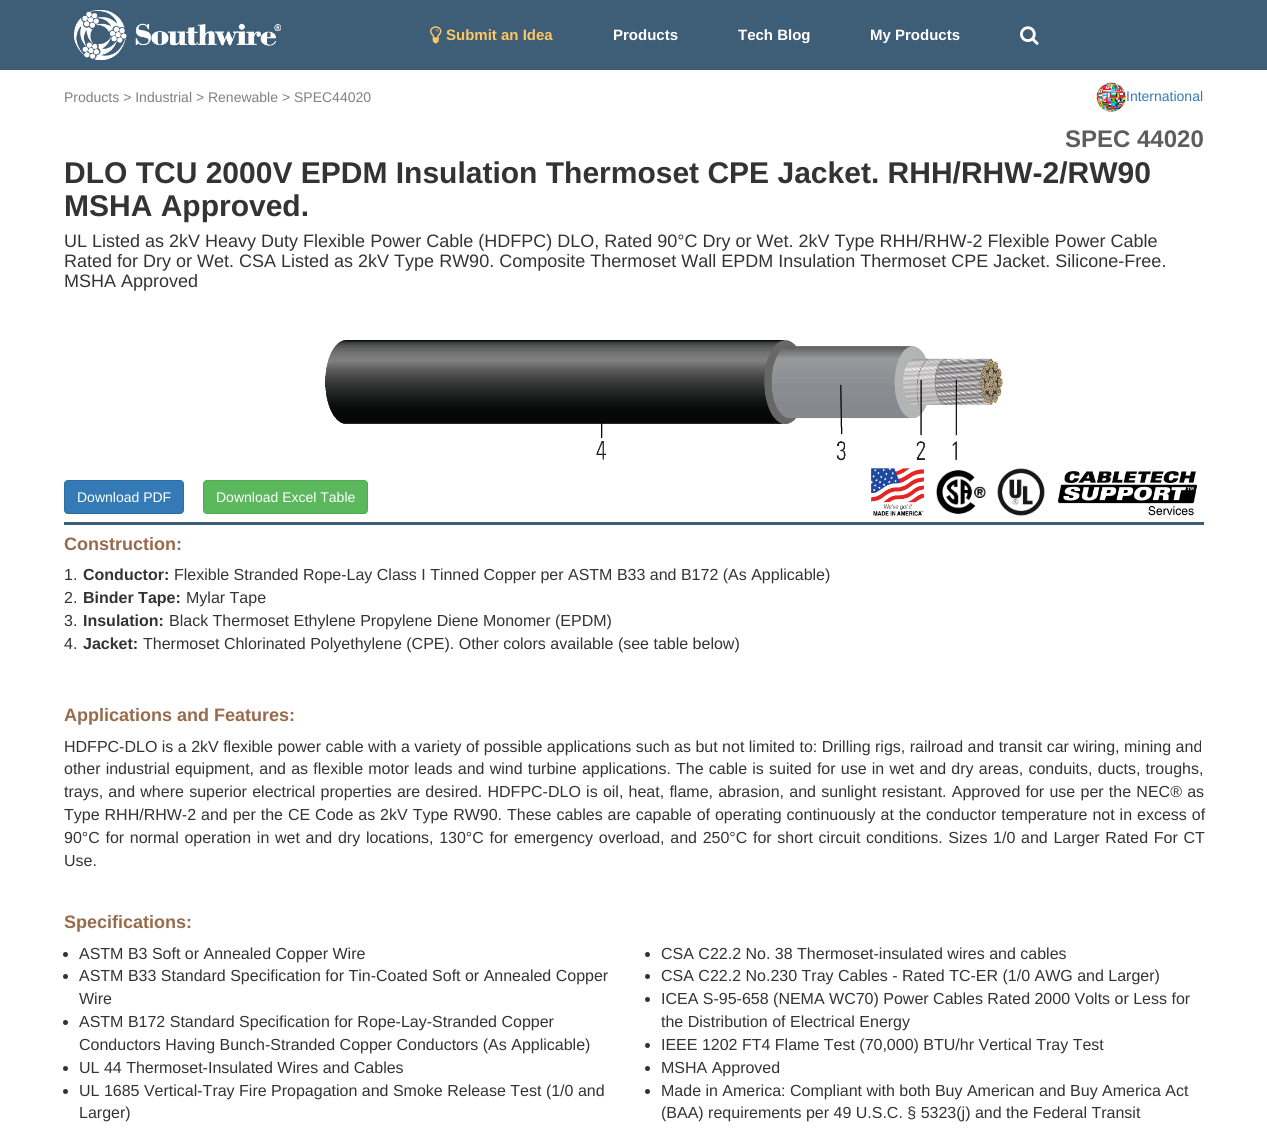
#include <cairo/cairo.h>
#include <math.h>
#include <stddef.h>


static void draw_spaced(cairo_t *cr, double x, double y, const char *s, double letter, double word) {
  cairo_move_to(cr, x, y);
  while (*s) {
    char ch[5] = {0};
    int n = 0;
    do ch[n++] = *s++; while ((*s & 0xC0) == 0x80);
    cairo_show_text(cr, ch);
    cairo_rel_move_to(cr, letter + word * (*ch == ' '), 0);
  }
}

static void rounded_rect(cairo_t *cr, double x, double y, double w, double h, double r) {
  cairo_new_sub_path(cr);
  cairo_arc(cr, x + w - r, y + h - r, r, 0, M_PI / 2);
  cairo_arc(cr, x + r, y + h - r, r, M_PI / 2, M_PI);
  cairo_arc(cr, x + r, y + r, r, M_PI, 1.5 * M_PI);
  cairo_arc(cr, x + w - r, y + r, r, 1.5 * M_PI, 2 * M_PI);
  cairo_close_path(cr);
}

static void draw_image(cairo_t *cr, const char *path, double x, double y, double w, double h) {
  cairo_surface_t *image = cairo_image_surface_create_from_png(path);
  cairo_save(cr);
  cairo_set_source_surface(cr, image, x, y);
  cairo_rectangle(cr, x, y, w, h);
  cairo_fill(cr);
  cairo_restore(cr);
  cairo_surface_destroy(image);
}

static void draw(cairo_t *cr) {
  cairo_set_source_rgb(cr, 1, 1, 1);
  cairo_paint(cr);
  cairo_set_source_rgb(cr, 62 / 255.0, 93 / 255.0, 119 / 255.0);
  cairo_rectangle(cr, 0, 0, 1267, 70);
  cairo_fill(cr);
  draw_image(cr, "images/1.png", 74, 10, 207, 50);
  draw_image(cr, "images/2.png", 430, 26, 12, 18);
  draw_image(cr, "images/3.png", 1020, 26, 19, 19);
  draw_image(cr, "images/4.png", 1096, 82, 30, 30);
  draw_image(cr, "images/5.png", 325, 340, 678, 121);
  cairo_set_source_rgb(cr, 51 / 255.0, 122 / 255.0, 183 / 255.0);
  rounded_rect(cr, 64.5, 480.5, 119, 33, 3.5);
  cairo_fill_preserve(cr);
  cairo_set_source_rgb(cr, 46 / 255.0, 109 / 255.0, 164 / 255.0);
  cairo_set_line_width(cr, 1);
  cairo_stroke(cr);
  cairo_set_source_rgb(cr, 92 / 255.0, 184 / 255.0, 92 / 255.0);
  rounded_rect(cr, 203.5, 480.5, 164, 33, 3.5);
  cairo_fill_preserve(cr);
  cairo_set_source_rgb(cr, 76 / 255.0, 174 / 255.0, 76 / 255.0);
  cairo_stroke(cr);
  draw_image(cr, "images/6.png", 871, 468, 54, 48);
  draw_image(cr, "images/7.png", 936, 470, 50, 44);
  draw_image(cr, "images/8.png", 997, 468, 48, 48);
  draw_image(cr, "images/9.png", 1058, 471, 140, 45);
  cairo_set_source_rgb(cr, 62 / 255.0, 93 / 255.0, 119 / 255.0);
  cairo_rectangle(cr, 64, 522, 1140, 3);
  cairo_fill(cr);
  cairo_set_source_rgb(cr, 51 / 255.0, 51 / 255.0, 51 / 255.0);
  cairo_arc(cr, 65.5, 954.5, 2.5, 0, 2 * M_PI);
  cairo_fill(cr);
  cairo_arc(cr, 647.5, 954.5, 2.5, 0, 2 * M_PI);
  cairo_fill(cr);
  cairo_arc(cr, 65.5, 976.5, 2.5, 0, 2 * M_PI);
  cairo_fill(cr);
  cairo_arc(cr, 647.5, 976.5, 2.5, 0, 2 * M_PI);
  cairo_fill(cr);
  cairo_arc(cr, 65.5, 1022.5, 2.5, 0, 2 * M_PI);
  cairo_fill(cr);
  cairo_arc(cr, 647.5, 999.5, 2.5, 0, 2 * M_PI);
  cairo_fill(cr);
  cairo_arc(cr, 647.5, 1045.5, 2.5, 0, 2 * M_PI);
  cairo_fill(cr);
  cairo_arc(cr, 65.5, 1068.5, 2.5, 0, 2 * M_PI);
  cairo_fill(cr);
  cairo_arc(cr, 647.5, 1068.5, 2.5, 0, 2 * M_PI);
  cairo_fill(cr);
  cairo_arc(cr, 65.5, 1091.5, 2.5, 0, 2 * M_PI);
  cairo_fill(cr);
  cairo_arc(cr, 647.5, 1091.5, 2.5, 0, 2 * M_PI);
  cairo_fill(cr);
  cairo_select_font_face(cr, "Liberation Sans", CAIRO_FONT_SLANT_NORMAL, CAIRO_FONT_WEIGHT_BOLD);
  cairo_set_font_size(cr, 15);
  cairo_set_source_rgb(cr, 253 / 255.0, 199 / 255.0, 100 / 255.0);
  cairo_move_to(cr, 446, 40);
  cairo_show_text(cr, "Submit an Idea");
  cairo_set_source_rgb(cr, 1, 1, 1);
  cairo_move_to(cr, 613, 40);
  cairo_show_text(cr, "Products");
  cairo_move_to(cr, 738, 40);
  cairo_show_text(cr, "Tech Blog");
  cairo_move_to(cr, 870, 40);
  cairo_show_text(cr, "My Products");
  cairo_select_font_face(cr, "Liberation Sans", CAIRO_FONT_SLANT_NORMAL, CAIRO_FONT_WEIGHT_NORMAL);
  cairo_set_font_size(cr, 14);
  cairo_set_source_rgb(cr, 128 / 255.0, 128 / 255.0, 128 / 255.0);
  cairo_move_to(cr, 64, 102);
  cairo_show_text(cr, "Products > Industrial > Renewable > SPEC44020");
  cairo_set_source_rgb(cr, 51 / 255.0, 122 / 255.0, 183 / 255.0);
  cairo_move_to(cr, 1126, 101);
  cairo_show_text(cr, "International");
  cairo_select_font_face(cr, "Liberation Sans", CAIRO_FONT_SLANT_NORMAL, CAIRO_FONT_WEIGHT_BOLD);
  cairo_set_font_size(cr, 24);
  cairo_set_source_rgb(cr, 93 / 255.0, 93 / 255.0, 93 / 255.0);
  cairo_move_to(cr, 1065, 147);
  cairo_show_text(cr, "SPEC 44020");
  cairo_set_font_size(cr, 30);
  cairo_set_source_rgb(cr, 51 / 255.0, 51 / 255.0, 51 / 255.0);
  cairo_move_to(cr, 64, 183);
  cairo_show_text(cr, "DLO TCU 2000V EPDM Insulation Thermoset CPE Jacket. RHH/RHW-2/RW90");
  cairo_move_to(cr, 64, 216);
  cairo_show_text(cr, "MSHA Approved.");
  cairo_select_font_face(cr, "Liberation Sans", CAIRO_FONT_SLANT_NORMAL, CAIRO_FONT_WEIGHT_NORMAL);
  cairo_set_font_size(cr, 18);
  cairo_move_to(cr, 64, 247);
  cairo_show_text(cr, "UL Listed as 2kV Heavy Duty Flexible Power Cable (HDFPC) DLO, Rated 90°C Dry or Wet. 2kV Type RHH/RHW-2 Flexible Power Cable");
  cairo_move_to(cr, 64, 267);
  cairo_show_text(cr, "Rated for Dry or Wet. CSA Listed as 2kV Type RW90. Composite Thermoset Wall EPDM Insulation Thermoset CPE Jacket. Silicone-Free.");
  cairo_move_to(cr, 64, 287);
  cairo_show_text(cr, "MSHA Approved");
  cairo_set_font_size(cr, 14);
  cairo_set_source_rgb(cr, 1, 1, 1);
  cairo_move_to(cr, 77, 502);
  cairo_show_text(cr, "Download PDF");
  cairo_move_to(cr, 216, 502);
  cairo_show_text(cr, "Download Excel Table");
  cairo_select_font_face(cr, "Liberation Sans", CAIRO_FONT_SLANT_NORMAL, CAIRO_FONT_WEIGHT_BOLD);
  cairo_set_font_size(cr, 18);
  cairo_set_source_rgb(cr, 152 / 255.0, 106 / 255.0, 76 / 255.0);
  cairo_move_to(cr, 64, 550);
  cairo_show_text(cr, "Construction:");
  cairo_select_font_face(cr, "Liberation Sans", CAIRO_FONT_SLANT_NORMAL, CAIRO_FONT_WEIGHT_NORMAL);
  cairo_set_font_size(cr, 16);
  cairo_set_source_rgb(cr, 51 / 255.0, 51 / 255.0, 51 / 255.0);
  cairo_move_to(cr, 64, 580);
  cairo_show_text(cr, "1.");
  cairo_select_font_face(cr, "Liberation Sans", CAIRO_FONT_SLANT_NORMAL, CAIRO_FONT_WEIGHT_BOLD);
  cairo_move_to(cr, 83, 580);
  cairo_show_text(cr, "Conductor:");
  cairo_select_font_face(cr, "Liberation Sans", CAIRO_FONT_SLANT_NORMAL, CAIRO_FONT_WEIGHT_NORMAL);
  cairo_move_to(cr, 174, 580);
  cairo_show_text(cr, "Flexible Stranded Rope-Lay Class I Tinned Copper per ASTM B33 and B172 (As Applicable)");
  cairo_move_to(cr, 64, 603);
  cairo_show_text(cr, "2.");
  cairo_select_font_face(cr, "Liberation Sans", CAIRO_FONT_SLANT_NORMAL, CAIRO_FONT_WEIGHT_BOLD);
  cairo_move_to(cr, 83, 603);
  cairo_show_text(cr, "Binder Tape:");
  cairo_select_font_face(cr, "Liberation Sans", CAIRO_FONT_SLANT_NORMAL, CAIRO_FONT_WEIGHT_NORMAL);
  cairo_move_to(cr, 186, 603);
  cairo_show_text(cr, "Mylar Tape");
  cairo_move_to(cr, 64, 626);
  cairo_show_text(cr, "3.");
  cairo_select_font_face(cr, "Liberation Sans", CAIRO_FONT_SLANT_NORMAL, CAIRO_FONT_WEIGHT_BOLD);
  cairo_move_to(cr, 83, 626);
  cairo_show_text(cr, "Insulation:");
  cairo_select_font_face(cr, "Liberation Sans", CAIRO_FONT_SLANT_NORMAL, CAIRO_FONT_WEIGHT_NORMAL);
  cairo_move_to(cr, 169, 626);
  cairo_show_text(cr, "Black Thermoset Ethylene Propylene Diene Monomer (EPDM)");
  cairo_move_to(cr, 64, 649);
  cairo_show_text(cr, "4.");
  cairo_select_font_face(cr, "Liberation Sans", CAIRO_FONT_SLANT_NORMAL, CAIRO_FONT_WEIGHT_BOLD);
  cairo_move_to(cr, 83, 649);
  cairo_show_text(cr, "Jacket:");
  cairo_select_font_face(cr, "Liberation Sans", CAIRO_FONT_SLANT_NORMAL, CAIRO_FONT_WEIGHT_NORMAL);
  cairo_move_to(cr, 143, 649);
  cairo_show_text(cr, "Thermoset Chlorinated Polyethylene (CPE). Other colors available (see table below)");
  cairo_select_font_face(cr, "Liberation Sans", CAIRO_FONT_SLANT_NORMAL, CAIRO_FONT_WEIGHT_BOLD);
  cairo_set_font_size(cr, 18);
  cairo_set_source_rgb(cr, 152 / 255.0, 106 / 255.0, 76 / 255.0);
  cairo_move_to(cr, 64, 721);
  cairo_show_text(cr, "Applications and Features:");
  cairo_select_font_face(cr, "Liberation Sans", CAIRO_FONT_SLANT_NORMAL, CAIRO_FONT_WEIGHT_NORMAL);
  cairo_set_font_size(cr, 16);
  cairo_set_source_rgb(cr, 51 / 255.0, 51 / 255.0, 51 / 255.0);
  cairo_move_to(cr, 64, 752);
  cairo_show_text(cr, "HDFPC-DLO is a 2kV flexible power cable with a variety of possible applications such as but not limited to: Drilling rigs, railroad and transit car wiring, mining and");
  draw_spaced(cr, 64, 774, "other industrial equipment, and as flexible motor leads and wind turbine applications. The cable is suited for use in wet and dry areas, conduits, ducts, troughs,", 0, 0.75);
  draw_spaced(cr, 64, 797, "trays, and where superior electrical properties are desired. HDFPC-DLO is oil, heat, flame, abrasion, and sunlight resistant. Approved for use per the NEC® as", 0, 0.8);
  draw_spaced(cr, 64, 820, "Type RHH/RHW-2 and per the CE Code as 2kV Type RW90. These cables are capable of operating continuously at the conductor temperature not in excess of", 0, 0.5);
  draw_spaced(cr, 64, 843, "90°C for normal operation in wet and dry locations, 130°C for emergency overload, and 250°C for short circuit conditions. Sizes 1/0 and Larger Rated For CT", 0, 1.25);
  cairo_move_to(cr, 64, 866);
  cairo_show_text(cr, "Use.");
  cairo_select_font_face(cr, "Liberation Sans", CAIRO_FONT_SLANT_NORMAL, CAIRO_FONT_WEIGHT_BOLD);
  cairo_set_font_size(cr, 18);
  cairo_set_source_rgb(cr, 152 / 255.0, 106 / 255.0, 76 / 255.0);
  cairo_move_to(cr, 64, 928);
  cairo_show_text(cr, "Specifications:");
  cairo_select_font_face(cr, "Liberation Sans", CAIRO_FONT_SLANT_NORMAL, CAIRO_FONT_WEIGHT_NORMAL);
  cairo_set_font_size(cr, 16);
  cairo_set_source_rgb(cr, 51 / 255.0, 51 / 255.0, 51 / 255.0);
  cairo_move_to(cr, 79, 959);
  cairo_show_text(cr, "ASTM B3 Soft or Annealed Copper Wire");
  cairo_move_to(cr, 661, 959);
  cairo_show_text(cr, "CSA C22.2 No. 38 Thermoset-insulated wires and cables");
  cairo_move_to(cr, 79, 981);
  cairo_show_text(cr, "ASTM B33 Standard Specification for Tin-Coated Soft or Annealed Copper");
  cairo_move_to(cr, 79, 1004);
  cairo_show_text(cr, "Wire");
  cairo_move_to(cr, 661, 981);
  cairo_show_text(cr, "CSA C22.2 No.230 Tray Cables - Rated TC-ER (1/0 AWG and Larger)");
  cairo_move_to(cr, 79, 1027);
  cairo_show_text(cr, "ASTM B172 Standard Specification for Rope-Lay-Stranded Copper");
  cairo_move_to(cr, 79, 1050);
  cairo_show_text(cr, "Conductors Having Bunch-Stranded Copper Conductors (As Applicable)");
  cairo_move_to(cr, 661, 1004);
  cairo_show_text(cr, "ICEA S-95-658 (NEMA WC70) Power Cables Rated 2000 Volts or Less for");
  cairo_move_to(cr, 661, 1027);
  cairo_show_text(cr, "the Distribution of Electrical Energy");
  cairo_move_to(cr, 661, 1050);
  cairo_show_text(cr, "IEEE 1202 FT4 Flame Test (70,000) BTU/hr Vertical Tray Test");
  cairo_move_to(cr, 79, 1073);
  cairo_show_text(cr, "UL 44 Thermoset-Insulated Wires and Cables");
  cairo_move_to(cr, 661, 1073);
  cairo_show_text(cr, "MSHA Approved");
  cairo_move_to(cr, 79, 1096);
  cairo_show_text(cr, "UL 1685 Vertical-Tray Fire Propagation and Smoke Release Test (1/0 and");
  cairo_move_to(cr, 79, 1118);
  cairo_show_text(cr, "Larger)");
  cairo_move_to(cr, 661, 1096);
  cairo_show_text(cr, "Made in America: Compliant with both Buy American and Buy America Act");
  cairo_move_to(cr, 661, 1118);
  cairo_show_text(cr, "(BAA) requirements per 49 U.S.C. § 5323(j) and the Federal Transit");
}

int main(void) {
  cairo_surface_t *surface = cairo_image_surface_create(CAIRO_FORMAT_RGB24, 1267, 1131);
  cairo_t *cr = cairo_create(surface);
  cairo_font_options_t *options = cairo_font_options_create();
  cairo_font_options_set_hint_metrics(options, CAIRO_HINT_METRICS_OFF);
  cairo_font_options_set_hint_style(options, CAIRO_HINT_STYLE_NONE);
  cairo_set_font_options(cr, options);
  cairo_set_miter_limit(cr, 4);
  draw(cr);
  cairo_surface_write_to_png(surface, "out.png");
  cairo_font_options_destroy(options);
  cairo_destroy(cr);
  cairo_surface_destroy(surface);
  return 0;
}
